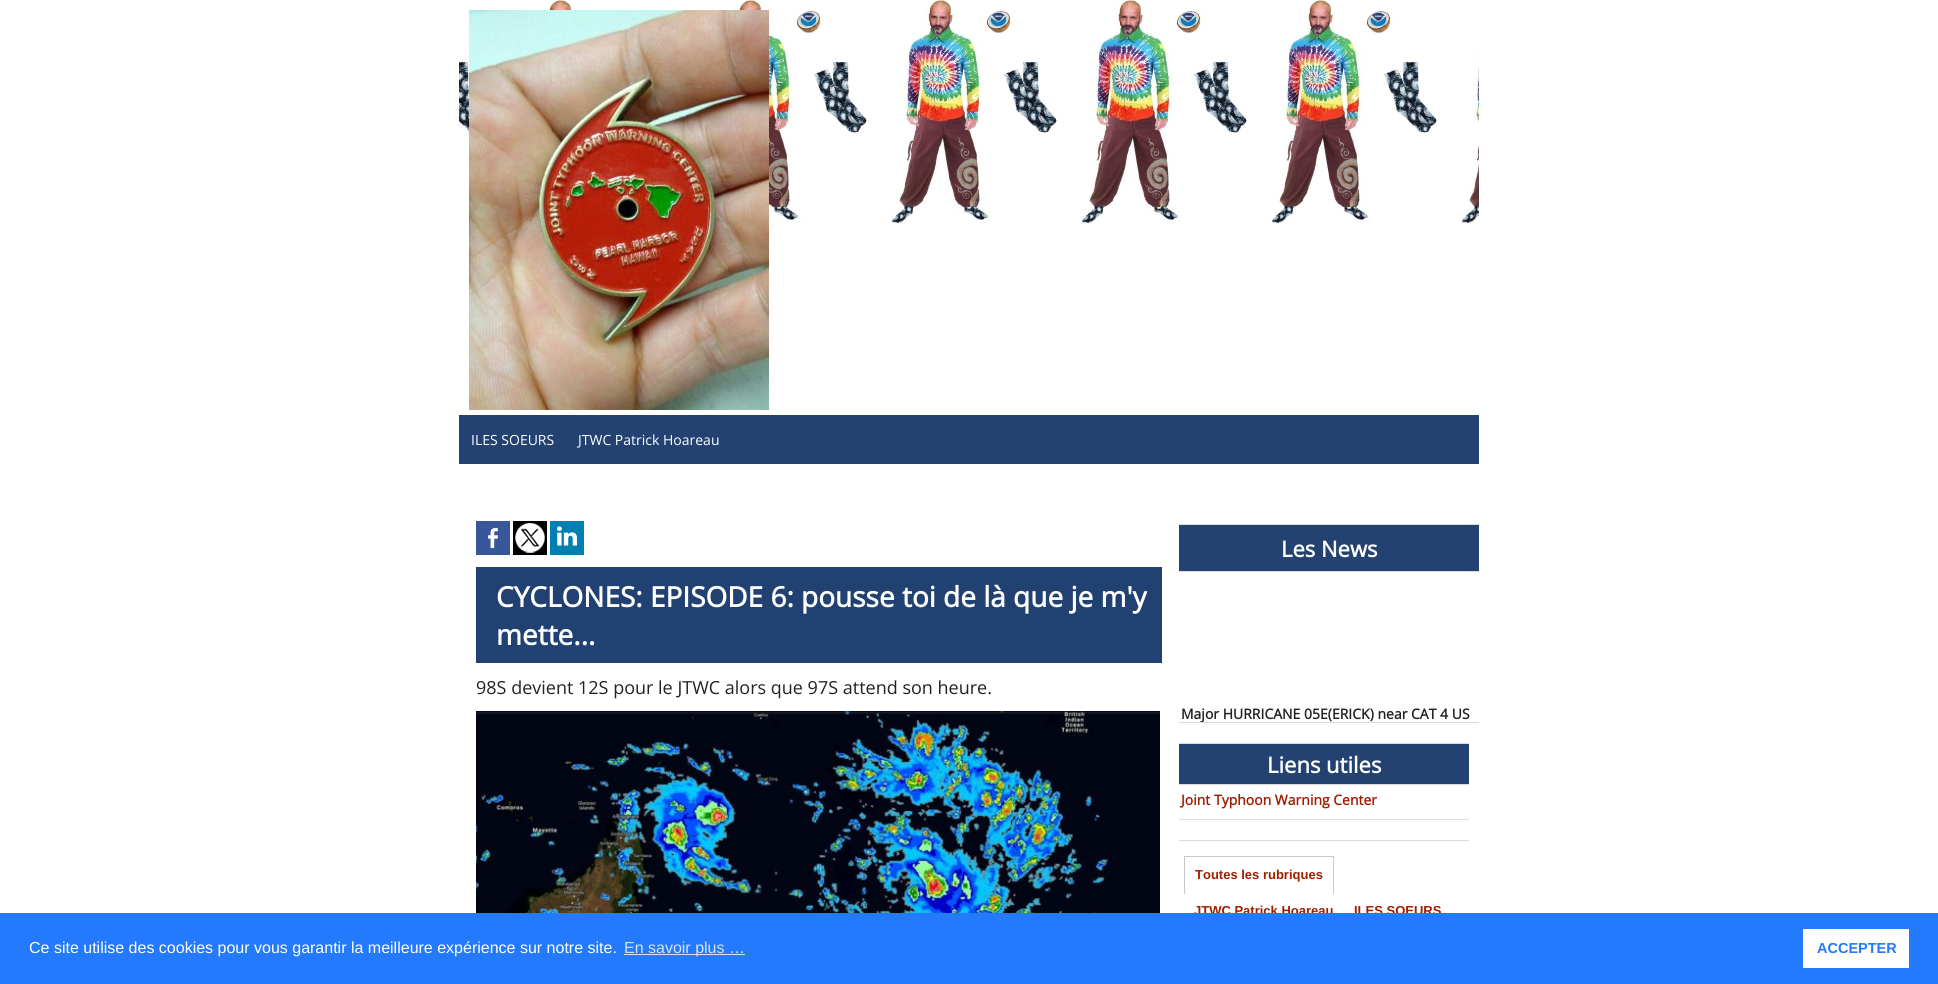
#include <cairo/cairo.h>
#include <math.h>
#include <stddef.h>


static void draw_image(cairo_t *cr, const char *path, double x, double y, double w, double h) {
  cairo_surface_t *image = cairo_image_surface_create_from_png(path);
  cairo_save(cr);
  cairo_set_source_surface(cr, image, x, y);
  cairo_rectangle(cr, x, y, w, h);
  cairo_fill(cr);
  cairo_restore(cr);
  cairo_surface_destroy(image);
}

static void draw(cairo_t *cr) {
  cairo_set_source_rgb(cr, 1, 1, 1);
  cairo_paint(cr);
  draw_image(cr, "images/1.png", 459, 0, 1020, 224);
  draw_image(cr, "images/2.png", 469, 10, 300, 400);
  cairo_set_source_rgb(cr, 35 / 255.0, 66 / 255.0, 113 / 255.0);
  cairo_rectangle(cr, 459, 415, 1020, 49);
  cairo_fill(cr);
  draw_image(cr, "images/3.png", 476, 521, 34, 34);
  draw_image(cr, "images/4.png", 513, 521, 34, 34);
  draw_image(cr, "images/5.png", 550, 521, 34, 34);
  cairo_set_source_rgb(cr, 33 / 255.0, 65 / 255.0, 114 / 255.0);
  cairo_rectangle(cr, 476, 567, 686, 96);
  cairo_fill(cr);
  draw_image(cr, "images/6.png", 476, 711, 684, 202);
  cairo_set_source_rgb(cr, 219 / 255.0, 219 / 255.0, 219 / 255.0);
  cairo_rectangle(cr, 1179, 524, 300, 1);
  cairo_fill(cr);
  cairo_set_source_rgb(cr, 35 / 255.0, 66 / 255.0, 113 / 255.0);
  cairo_rectangle(cr, 1179, 525, 300, 46);
  cairo_fill(cr);
  cairo_set_source_rgb(cr, 219 / 255.0, 219 / 255.0, 219 / 255.0);
  cairo_rectangle(cr, 1179, 571, 300, 1);
  cairo_fill(cr);
  cairo_rectangle(cr, 1179, 722, 300, 1);
  cairo_fill(cr);
  cairo_rectangle(cr, 1179, 743, 290, 1);
  cairo_fill(cr);
  cairo_set_source_rgb(cr, 35 / 255.0, 66 / 255.0, 113 / 255.0);
  cairo_rectangle(cr, 1179, 744, 290, 40);
  cairo_fill(cr);
  cairo_set_source_rgb(cr, 219 / 255.0, 219 / 255.0, 219 / 255.0);
  cairo_rectangle(cr, 1179, 784, 290, 1);
  cairo_fill(cr);
  cairo_rectangle(cr, 1179, 819, 290, 1);
  cairo_fill(cr);
  cairo_rectangle(cr, 1179, 840, 290, 1);
  cairo_fill(cr);
  cairo_set_source_rgb(cr, 201 / 255.0, 201 / 255.0, 201 / 255.0);
  cairo_rectangle(cr, 1184, 856, 150, 1);
  cairo_fill(cr);
  cairo_rectangle(cr, 1333, 856, 1, 38);
  cairo_fill(cr);
  cairo_rectangle(cr, 1184, 856, 1, 38);
  cairo_fill(cr);
  cairo_select_font_face(cr, "Open Sans", CAIRO_FONT_SLANT_NORMAL, CAIRO_FONT_WEIGHT_NORMAL);
  cairo_set_font_size(cr, 14);
  cairo_set_source_rgb(cr, 1, 1, 1);
  cairo_move_to(cr, 471, 445);
  cairo_show_text(cr, "ILES SOEURS");
  cairo_move_to(cr, 578, 445);
  cairo_show_text(cr, "JTWC Patrick Hoareau");
  cairo_select_font_face(cr, "Open Sans", CAIRO_FONT_SLANT_NORMAL, CAIRO_FONT_WEIGHT_BOLD);
  cairo_set_font_size(cr, 28);
  cairo_move_to(cr, 496, 607);
  cairo_show_text(cr, "CYCLONES: EPISODE 6: pousse toi de là que je m'y");
  cairo_move_to(cr, 496, 645);
  cairo_show_text(cr, "mette...");
  cairo_select_font_face(cr, "Open Sans", CAIRO_FONT_SLANT_NORMAL, CAIRO_FONT_WEIGHT_NORMAL);
  cairo_set_font_size(cr, 18);
  cairo_set_source_rgb(cr, 34 / 255.0, 34 / 255.0, 34 / 255.0);
  cairo_move_to(cr, 476, 694);
  cairo_show_text(cr, "98S devient 12S pour le JTWC alors que 97S attend son heure.");
  cairo_select_font_face(cr, "Open Sans", CAIRO_FONT_SLANT_NORMAL, CAIRO_FONT_WEIGHT_BOLD);
  cairo_set_font_size(cr, 22);
  cairo_set_source_rgb(cr, 1, 1, 1);
  cairo_move_to(cr, 1281, 557);
  cairo_show_text(cr, "Les News");
  cairo_save(cr);
  cairo_rectangle(cr, 1179, 572, 300, 150);
  cairo_clip(cr);
  cairo_set_font_size(cr, 14);
  cairo_set_source_rgb(cr, 34 / 255.0, 34 / 255.0, 34 / 255.0);
  cairo_move_to(cr, 1181, 719);
  cairo_show_text(cr, "Major HURRICANE 05E(ERICK) near CAT 4 US");
  cairo_restore(cr);
  cairo_move_to(cr, 1267, 773);
  cairo_show_text(cr, "Liens utiles");
  cairo_set_font_size(cr, 14);
  cairo_set_source_rgb(cr, 158 / 255.0, 30 / 255.0, 0);
  cairo_move_to(cr, 1181, 805);
  cairo_show_text(cr, "Joint Typhoon Warning Center");
  cairo_select_font_face(cr, "Liberation Sans", CAIRO_FONT_SLANT_NORMAL, CAIRO_FONT_WEIGHT_BOLD);
  cairo_set_font_size(cr, 13);
  cairo_move_to(cr, 1195, 879);
  cairo_show_text(cr, "Toutes les rubriques");
  cairo_move_to(cr, 1194, 915);
  cairo_show_text(cr, "JTWC Patrick Hoareau");
  cairo_move_to(cr, 1354, 915);
  cairo_show_text(cr, "ILES SOEURS");
  cairo_set_source_rgb(cr, 35 / 255.0, 122 / 255.0, 252 / 255.0);
  cairo_rectangle(cr, 0, 913, 1938, 71);
  cairo_fill(cr);
  cairo_select_font_face(cr, "Liberation Sans", CAIRO_FONT_SLANT_NORMAL, CAIRO_FONT_WEIGHT_NORMAL);
  cairo_set_font_size(cr, 16);
  cairo_set_source_rgb(cr, 1, 1, 1);
  cairo_move_to(cr, 29, 953);
  cairo_show_text(cr, "Ce site utilise des cookies pour vous garantir la meilleure expérience sur notre site.");
  cairo_set_source_rgb(cr, 211 / 255.0, 228 / 255.0, 254 / 255.0);
  cairo_rectangle(cr, 624, 954, 121, 1);
  cairo_fill(cr);
  cairo_move_to(cr, 624, 953);
  cairo_show_text(cr, "En savoir plus …");
  cairo_set_source_rgb(cr, 1, 1, 1);
  cairo_rectangle(cr, 1803, 929, 106, 39);
  cairo_fill(cr);
  cairo_select_font_face(cr, "Liberation Sans", CAIRO_FONT_SLANT_NORMAL, CAIRO_FONT_WEIGHT_BOLD);
  cairo_set_font_size(cr, 14.5);
  cairo_set_source_rgb(cr, 35 / 255.0, 122 / 255.0, 252 / 255.0);
  cairo_move_to(cr, 1817, 953);
  cairo_show_text(cr, "ACCEPTER");
}

int main(void) {
  cairo_surface_t *surface = cairo_image_surface_create(CAIRO_FORMAT_RGB24, 1938, 984);
  cairo_t *cr = cairo_create(surface);
  cairo_font_options_t *options = cairo_font_options_create();
  cairo_font_options_set_hint_metrics(options, CAIRO_HINT_METRICS_OFF);
  cairo_font_options_set_hint_style(options, CAIRO_HINT_STYLE_NONE);
  cairo_set_font_options(cr, options);
  cairo_set_miter_limit(cr, 4);
  draw(cr);
  cairo_surface_write_to_png(surface, "out.png");
  cairo_font_options_destroy(options);
  cairo_destroy(cr);
  cairo_surface_destroy(surface);
  return 0;
}
